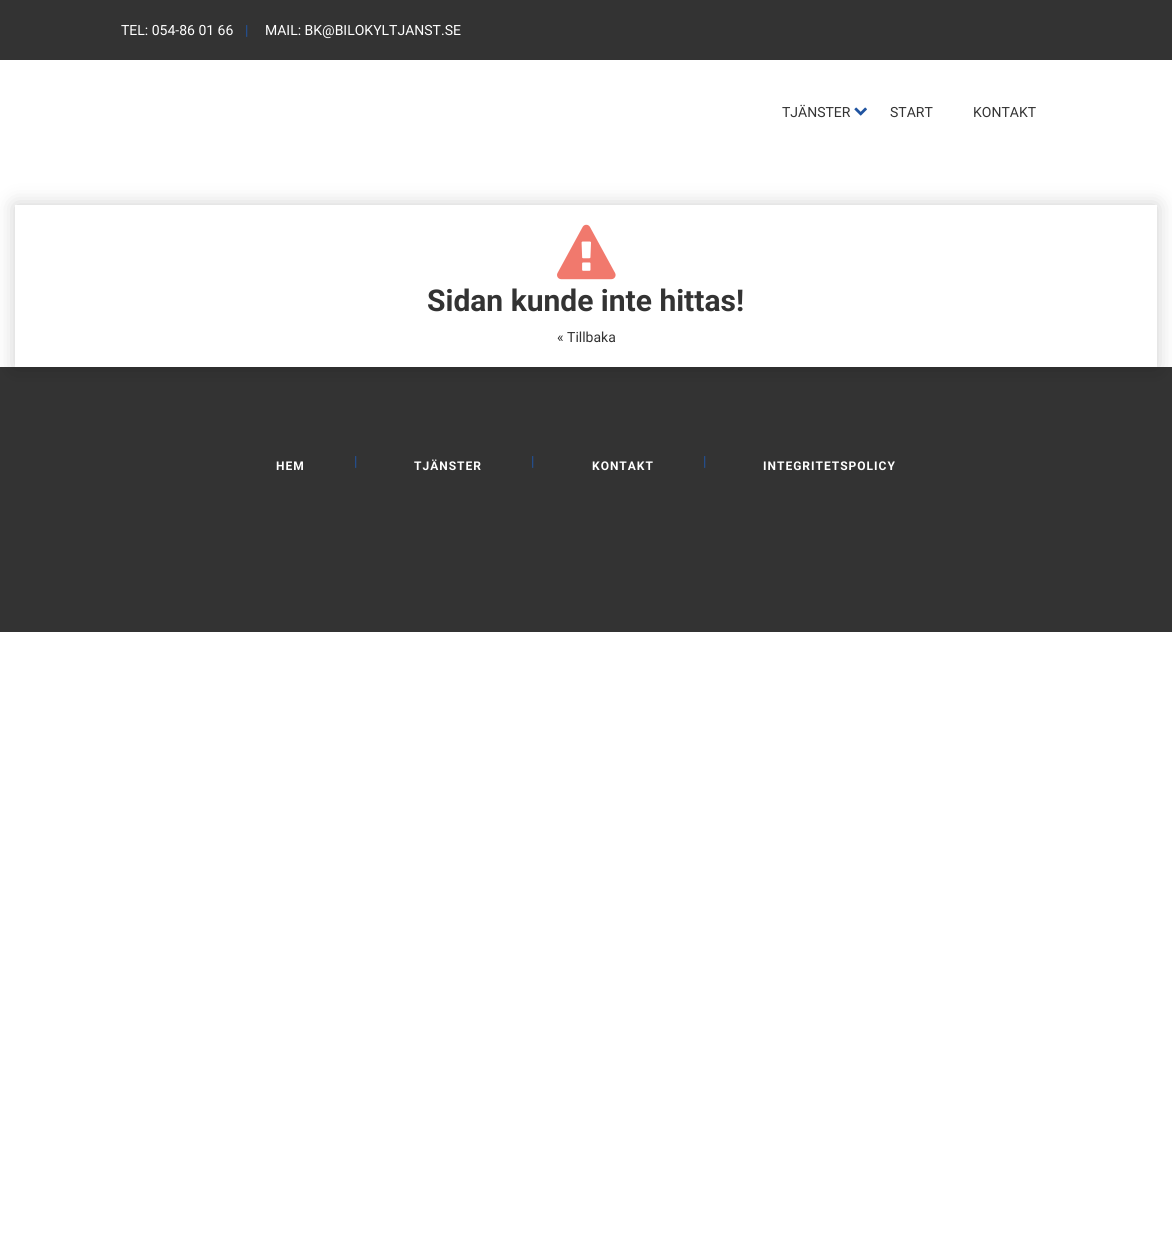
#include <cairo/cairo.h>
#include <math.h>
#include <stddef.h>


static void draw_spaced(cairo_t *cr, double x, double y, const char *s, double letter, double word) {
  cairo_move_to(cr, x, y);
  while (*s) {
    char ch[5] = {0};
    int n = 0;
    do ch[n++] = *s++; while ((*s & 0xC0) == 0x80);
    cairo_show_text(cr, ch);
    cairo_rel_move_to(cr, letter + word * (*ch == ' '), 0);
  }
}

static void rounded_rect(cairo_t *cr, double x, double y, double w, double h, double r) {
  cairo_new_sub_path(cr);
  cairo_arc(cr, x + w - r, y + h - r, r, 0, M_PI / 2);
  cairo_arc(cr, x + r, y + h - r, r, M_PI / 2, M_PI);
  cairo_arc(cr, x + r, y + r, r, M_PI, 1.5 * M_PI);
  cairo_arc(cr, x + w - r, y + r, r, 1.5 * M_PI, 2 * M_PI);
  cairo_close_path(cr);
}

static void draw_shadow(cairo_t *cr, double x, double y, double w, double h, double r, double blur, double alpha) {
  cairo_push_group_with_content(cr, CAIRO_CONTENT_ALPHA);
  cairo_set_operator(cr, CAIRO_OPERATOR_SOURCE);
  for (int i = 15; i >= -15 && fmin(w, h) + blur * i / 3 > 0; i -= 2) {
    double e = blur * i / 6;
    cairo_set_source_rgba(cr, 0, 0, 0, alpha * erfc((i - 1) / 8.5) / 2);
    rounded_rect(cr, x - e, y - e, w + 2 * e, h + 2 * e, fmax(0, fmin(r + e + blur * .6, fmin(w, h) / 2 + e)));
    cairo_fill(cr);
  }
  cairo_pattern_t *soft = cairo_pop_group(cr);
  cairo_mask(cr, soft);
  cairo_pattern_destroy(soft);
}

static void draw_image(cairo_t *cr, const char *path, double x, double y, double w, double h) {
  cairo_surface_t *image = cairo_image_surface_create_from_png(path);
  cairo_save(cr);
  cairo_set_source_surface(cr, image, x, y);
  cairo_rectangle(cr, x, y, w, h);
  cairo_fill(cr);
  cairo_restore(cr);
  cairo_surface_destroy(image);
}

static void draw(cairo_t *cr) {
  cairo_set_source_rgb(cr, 1, 1, 1);
  cairo_paint(cr);
  cairo_set_source_rgb(cr, 51 / 255.0, 51 / 255.0, 51 / 255.0);
  cairo_rectangle(cr, 0, 0, 1172, 60);
  cairo_fill(cr);
  draw_image(cr, "images/1.png", 854, 107, 13, 9);
  cairo_rectangle(cr, 0, 367, 1172, 265);
  cairo_fill(cr);
  cairo_save(cr);
  cairo_set_fill_rule(cr, CAIRO_FILL_RULE_EVEN_ODD);
  cairo_new_path(cr);
  cairo_move_to(cr, 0, 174);
  cairo_line_to(cr, 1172, 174);
  cairo_line_to(cr, 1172, 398);
  cairo_line_to(cr, 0, 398);
  cairo_close_path(cr);
  cairo_move_to(cr, 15, 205);
  cairo_line_to(cr, 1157, 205);
  cairo_line_to(cr, 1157, 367);
  cairo_line_to(cr, 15, 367);
  cairo_close_path(cr);
  cairo_clip(cr);
  cairo_set_source_rgb(cr, 0, 0, 0);
  draw_shadow(cr, 15, 205, 1142, 162, 0, 10, 0.2);
  cairo_restore(cr);
  draw_image(cr, "images/2.png", 557, 224, 59, 56);
  cairo_select_font_face(cr, "Roboto", CAIRO_FONT_SLANT_NORMAL, CAIRO_FONT_WEIGHT_NORMAL);
  cairo_set_font_size(cr, 14);
  cairo_set_source_rgb(cr, 1, 1, 1);
  cairo_move_to(cr, 121, 35);
  cairo_show_text(cr, "TEL: 054-86 01 66");
  cairo_set_source_rgb(cr, 32 / 255.0, 84 / 255.0, 160 / 255.0);
  cairo_move_to(cr, 245, 35);
  cairo_show_text(cr, "|");
  cairo_set_source_rgb(cr, 1, 1, 1);
  cairo_move_to(cr, 265, 35);
  cairo_show_text(cr, "MAIL: BK@BILOKYLTJANST.SE");
  cairo_set_source_rgb(cr, 51 / 255.0, 51 / 255.0, 51 / 255.0);
  cairo_move_to(cr, 782, 117);
  cairo_show_text(cr, "TJÄNSTER");
  cairo_move_to(cr, 890, 117);
  cairo_show_text(cr, "START");
  cairo_move_to(cr, 973, 117);
  cairo_show_text(cr, "KONTAKT");
  cairo_select_font_face(cr, "Roboto", CAIRO_FONT_SLANT_NORMAL, CAIRO_FONT_WEIGHT_BOLD);
  cairo_set_font_size(cr, 30);
  cairo_move_to(cr, 427, 311);
  cairo_show_text(cr, "Sidan kunde inte hittas!");
  cairo_select_font_face(cr, "Roboto", CAIRO_FONT_SLANT_NORMAL, CAIRO_FONT_WEIGHT_NORMAL);
  cairo_set_font_size(cr, 14);
  cairo_move_to(cr, 557, 342);
  cairo_show_text(cr, "« Tillbaka");
  cairo_select_font_face(cr, "Roboto", CAIRO_FONT_SLANT_NORMAL, CAIRO_FONT_WEIGHT_BOLD);
  cairo_set_font_size(cr, 12);
  cairo_set_source_rgb(cr, 1, 1, 1);
  draw_spaced(cr, 276, 470, "HEM", 1, 0);
  cairo_select_font_face(cr, "Roboto", CAIRO_FONT_SLANT_NORMAL, CAIRO_FONT_WEIGHT_NORMAL);
  cairo_set_font_size(cr, 14);
  cairo_set_source_rgb(cr, 32 / 255.0, 84 / 255.0, 160 / 255.0);
  cairo_move_to(cr, 354, 466);
  cairo_show_text(cr, "|");
  cairo_select_font_face(cr, "Roboto", CAIRO_FONT_SLANT_NORMAL, CAIRO_FONT_WEIGHT_BOLD);
  cairo_set_font_size(cr, 12);
  cairo_set_source_rgb(cr, 1, 1, 1);
  draw_spaced(cr, 414, 470, "TJÄNSTER", 1, 0);
  cairo_select_font_face(cr, "Roboto", CAIRO_FONT_SLANT_NORMAL, CAIRO_FONT_WEIGHT_NORMAL);
  cairo_set_font_size(cr, 14);
  cairo_set_source_rgb(cr, 32 / 255.0, 84 / 255.0, 160 / 255.0);
  cairo_move_to(cr, 531, 466);
  cairo_show_text(cr, "|");
  cairo_select_font_face(cr, "Roboto", CAIRO_FONT_SLANT_NORMAL, CAIRO_FONT_WEIGHT_BOLD);
  cairo_set_font_size(cr, 12);
  cairo_set_source_rgb(cr, 1, 1, 1);
  draw_spaced(cr, 592, 470, "KONTAKT", 1, 0);
  cairo_select_font_face(cr, "Roboto", CAIRO_FONT_SLANT_NORMAL, CAIRO_FONT_WEIGHT_NORMAL);
  cairo_set_font_size(cr, 14);
  cairo_set_source_rgb(cr, 32 / 255.0, 84 / 255.0, 160 / 255.0);
  cairo_move_to(cr, 703, 466);
  cairo_show_text(cr, "|");
  cairo_select_font_face(cr, "Roboto", CAIRO_FONT_SLANT_NORMAL, CAIRO_FONT_WEIGHT_BOLD);
  cairo_set_font_size(cr, 12);
  cairo_set_source_rgb(cr, 1, 1, 1);
  draw_spaced(cr, 763, 470, "INTEGRITETSPOLICY", 1, 0);
}

int main(void) {
  cairo_surface_t *surface = cairo_image_surface_create(CAIRO_FORMAT_RGB24, 1172, 1255);
  cairo_t *cr = cairo_create(surface);
  cairo_font_options_t *options = cairo_font_options_create();
  cairo_font_options_set_hint_metrics(options, CAIRO_HINT_METRICS_OFF);
  cairo_font_options_set_hint_style(options, CAIRO_HINT_STYLE_NONE);
  cairo_set_font_options(cr, options);
  cairo_set_miter_limit(cr, 4);
  draw(cr);
  cairo_surface_write_to_png(surface, "out.png");
  cairo_font_options_destroy(options);
  cairo_destroy(cr);
  cairo_surface_destroy(surface);
  return 0;
}
